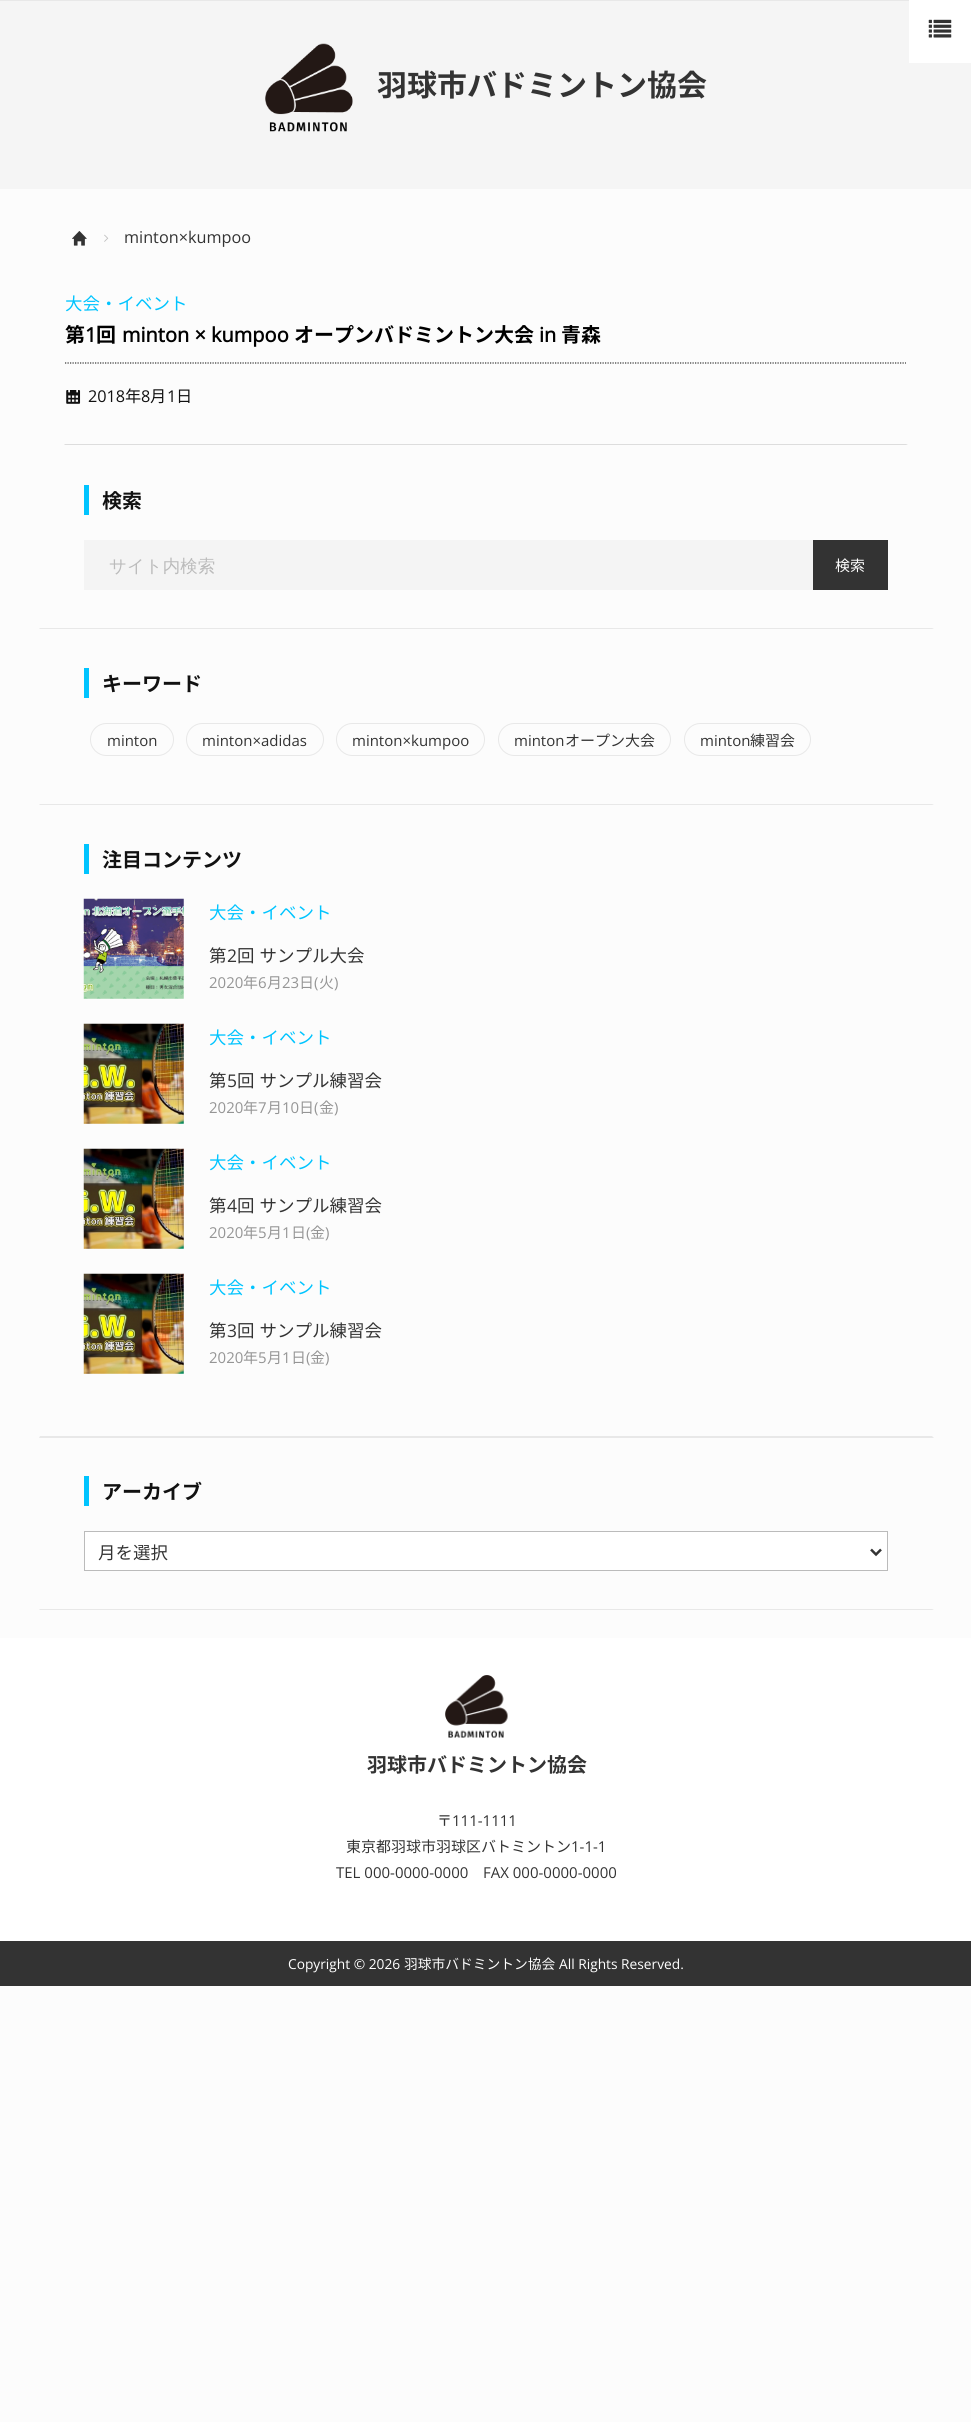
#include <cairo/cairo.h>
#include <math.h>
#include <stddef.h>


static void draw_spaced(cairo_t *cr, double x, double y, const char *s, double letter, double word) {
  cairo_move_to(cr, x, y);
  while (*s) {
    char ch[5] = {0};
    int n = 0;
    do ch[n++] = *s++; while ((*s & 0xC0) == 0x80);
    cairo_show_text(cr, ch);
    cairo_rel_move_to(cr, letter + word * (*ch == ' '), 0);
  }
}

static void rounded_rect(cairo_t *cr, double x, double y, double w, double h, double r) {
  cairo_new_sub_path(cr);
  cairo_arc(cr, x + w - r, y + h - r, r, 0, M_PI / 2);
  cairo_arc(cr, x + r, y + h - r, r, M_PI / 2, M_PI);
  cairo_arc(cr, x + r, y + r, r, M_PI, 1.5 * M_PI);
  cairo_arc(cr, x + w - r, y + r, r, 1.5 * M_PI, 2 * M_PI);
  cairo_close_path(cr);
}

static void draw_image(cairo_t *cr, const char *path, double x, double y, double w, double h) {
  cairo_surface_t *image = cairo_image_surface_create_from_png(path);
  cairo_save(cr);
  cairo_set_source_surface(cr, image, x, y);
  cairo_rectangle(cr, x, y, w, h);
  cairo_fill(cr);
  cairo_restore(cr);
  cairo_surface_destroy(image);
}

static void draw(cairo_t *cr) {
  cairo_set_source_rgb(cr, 252 / 255.0, 252 / 255.0, 252 / 255.0);
  cairo_paint(cr);
  cairo_set_source_rgb(cr, 232 / 255.0, 232 / 255.0, 232 / 255.0);
  cairo_rectangle(cr, 0, 0, 909, 1);
  cairo_fill(cr);
  cairo_set_source_rgb(cr, 245 / 255.0, 245 / 255.0, 245 / 255.0);
  cairo_rectangle(cr, 0, 1, 971, 188);
  cairo_fill(cr);
  cairo_set_source_rgb(cr, 1, 1, 1);
  cairo_rectangle(cr, 909, 0, 62, 63);
  cairo_fill(cr);
  draw_image(cr, "images/1.png", 928, 19, 24, 19);
  draw_image(cr, "images/2.png", 265, 43, 88, 89);
  draw_image(cr, "images/3.png", 72, 231, 15, 15);
  draw_image(cr, "images/4.png", 104, 234, 5, 8);
  cairo_set_source_rgb(cr, 221 / 255.0, 221 / 255.0, 221 / 255.0);
  cairo_new_path(cr);
  cairo_move_to(cr, 908, 445);
  cairo_line_to(cr, 64, 445);
  cairo_line_to(cr, 65, 444);
  cairo_line_to(cr, 906, 444);
  cairo_close_path(cr);
  cairo_fill(cr);
  cairo_new_path(cr);
  cairo_move_to(cr, 65, 363);
  cairo_line_to(cr, 906, 363);
  cairo_set_source_rgb(cr, 51 / 255.0, 51 / 255.0, 51 / 255.0);
  cairo_set_line_width(cr, 1.2);
  cairo_set_dash(cr, (double[]){1.25, 1.25}, 2, 0);
  cairo_stroke(cr);
  draw_image(cr, "images/5.png", 66, 390, 15, 14);
  cairo_set_source_rgb(cr, 232 / 255.0, 232 / 255.0, 232 / 255.0);
  cairo_new_path(cr);
  cairo_move_to(cr, 934, 629);
  cairo_line_to(cr, 39, 629);
  cairo_line_to(cr, 40, 628);
  cairo_line_to(cr, 932, 628);
  cairo_close_path(cr);
  cairo_fill(cr);
  cairo_set_source_rgb(cr, 0, 196 / 255.0, 1);
  cairo_rectangle(cr, 84, 485, 5, 30);
  cairo_fill(cr);
  cairo_set_source_rgb(cr, 244 / 255.0, 244 / 255.0, 244 / 255.0);
  cairo_rectangle(cr, 84, 540, 729, 50);
  cairo_fill(cr);
  cairo_set_source_rgb(cr, 51 / 255.0, 51 / 255.0, 51 / 255.0);
  cairo_rectangle(cr, 813, 540, 75, 50);
  cairo_fill(cr);
  cairo_set_source_rgb(cr, 232 / 255.0, 232 / 255.0, 232 / 255.0);
  cairo_new_path(cr);
  cairo_move_to(cr, 934, 805);
  cairo_line_to(cr, 39, 805);
  cairo_line_to(cr, 40, 804);
  cairo_line_to(cr, 932, 804);
  cairo_close_path(cr);
  cairo_fill(cr);
  cairo_set_source_rgb(cr, 0, 196 / 255.0, 1);
  cairo_rectangle(cr, 84, 668, 5, 30);
  cairo_fill(cr);
  rounded_rect(cr, 90.5, 723.5, 83, 32, 16);
  cairo_set_source_rgb(cr, 232 / 255.0, 232 / 255.0, 232 / 255.0);
  cairo_set_line_width(cr, 1);
  cairo_set_dash(cr, NULL, 0, 0);
  cairo_stroke(cr);
  rounded_rect(cr, 186.5, 723.5, 137, 32, 16);
  cairo_stroke(cr);
  rounded_rect(cr, 336.5, 723.5, 148, 32, 16);
  cairo_stroke(cr);
  rounded_rect(cr, 498.5, 723.5, 172, 32, 16);
  cairo_stroke(cr);
  rounded_rect(cr, 684.5, 723.5, 126, 32, 16);
  cairo_stroke(cr);
  cairo_new_path(cr);
  cairo_move_to(cr, 934, 1438);
  cairo_line_to(cr, 39, 1438);
  cairo_line_to(cr, 40, 1436);
  cairo_line_to(cr, 932, 1436);
  cairo_close_path(cr);
  cairo_fill(cr);
  cairo_set_source_rgb(cr, 0, 196 / 255.0, 1);
  cairo_rectangle(cr, 84, 844, 5, 30);
  cairo_fill(cr);
  draw_image(cr, "images/6.png", 83, 898, 101, 101);
  draw_image(cr, "images/7.png", 83, 1023, 101, 101);
  draw_image(cr, "images/7.png", 83, 1148, 101, 101);
  draw_image(cr, "images/7.png", 83, 1273, 101, 101);
  cairo_set_source_rgb(cr, 232 / 255.0, 232 / 255.0, 232 / 255.0);
  cairo_new_path(cr);
  cairo_move_to(cr, 934, 1610);
  cairo_line_to(cr, 39, 1610);
  cairo_line_to(cr, 40, 1609);
  cairo_line_to(cr, 932, 1609);
  cairo_close_path(cr);
  cairo_fill(cr);
  cairo_set_source_rgb(cr, 0, 196 / 255.0, 1);
  cairo_rectangle(cr, 84, 1476, 5, 30);
  cairo_fill(cr);
  cairo_set_source_rgb(cr, 1, 1, 1);
  cairo_rectangle(cr, 84.5, 1531.5, 803, 39);
  cairo_fill_preserve(cr);
  cairo_set_source_rgb(cr, 187 / 255.0, 187 / 255.0, 187 / 255.0);
  cairo_stroke(cr);
  cairo_new_path(cr);
  cairo_move_to(cr, 871, 1549.5);
  cairo_line_to(cr, 876, 1554.5);
  cairo_line_to(cr, 881, 1549.5);
  cairo_set_source_rgb(cr, 51 / 255.0, 51 / 255.0, 51 / 255.0);
  cairo_set_line_width(cr, 2.5);
  cairo_stroke(cr);
  cairo_set_source_rgb(cr, 1, 1, 1);
  cairo_rectangle(cr, 0, 1638, 971, 303);
  cairo_fill(cr);
  draw_image(cr, "images/8.png", 445, 1675, 63, 63);
  cairo_set_source_rgb(cr, 51 / 255.0, 51 / 255.0, 51 / 255.0);
  cairo_rectangle(cr, 0, 1941, 971, 45);
  cairo_fill(cr);
  cairo_select_font_face(cr, "Noto Sans JP", CAIRO_FONT_SLANT_NORMAL, CAIRO_FONT_WEIGHT_BOLD);
  cairo_set_font_size(cr, 30);
  cairo_move_to(cr, 377, 96);
  cairo_show_text(cr, "羽球市バドミントン協会");
  cairo_select_font_face(cr, "Open Sans", CAIRO_FONT_SLANT_NORMAL, CAIRO_FONT_WEIGHT_NORMAL);
  cairo_set_font_size(cr, 16.25);
  cairo_move_to(cr, 124, 243);
  cairo_show_text(cr, "minton×kumpoo");
  cairo_select_font_face(cr, "Noto Sans JP", CAIRO_FONT_SLANT_NORMAL, CAIRO_FONT_WEIGHT_NORMAL);
  cairo_set_font_size(cr, 17.5);
  cairo_set_source_rgb(cr, 0, 196 / 255.0, 1);
  cairo_move_to(cr, 65, 310);
  cairo_show_text(cr, "大会・イベント");
  cairo_select_font_face(cr, "Noto Sans JP", CAIRO_FONT_SLANT_NORMAL, CAIRO_FONT_WEIGHT_BOLD);
  cairo_set_font_size(cr, 20);
  cairo_set_source_rgb(cr, 0, 0, 0);
  cairo_move_to(cr, 65, 342);
  cairo_show_text(cr, "第");
  cairo_select_font_face(cr, "Open Sans", CAIRO_FONT_SLANT_NORMAL, CAIRO_FONT_WEIGHT_BOLD);
  cairo_move_to(cr, 85, 342);
  cairo_show_text(cr, "1");
  cairo_select_font_face(cr, "Noto Sans JP", CAIRO_FONT_SLANT_NORMAL, CAIRO_FONT_WEIGHT_BOLD);
  cairo_move_to(cr, 96, 342);
  cairo_show_text(cr, "回");
  cairo_select_font_face(cr, "Open Sans", CAIRO_FONT_SLANT_NORMAL, CAIRO_FONT_WEIGHT_BOLD);
  cairo_move_to(cr, 122, 342);
  cairo_show_text(cr, "minton × kumpoo");
  cairo_select_font_face(cr, "Noto Sans JP", CAIRO_FONT_SLANT_NORMAL, CAIRO_FONT_WEIGHT_BOLD);
  cairo_move_to(cr, 294, 342);
  cairo_show_text(cr, "オープンバドミントン大会");
  cairo_select_font_face(cr, "Open Sans", CAIRO_FONT_SLANT_NORMAL, CAIRO_FONT_WEIGHT_BOLD);
  cairo_move_to(cr, 539, 342);
  cairo_show_text(cr, "in");
  cairo_select_font_face(cr, "Noto Sans JP", CAIRO_FONT_SLANT_NORMAL, CAIRO_FONT_WEIGHT_BOLD);
  cairo_move_to(cr, 561, 342);
  cairo_show_text(cr, "青森");
  cairo_select_font_face(cr, "Open Sans", CAIRO_FONT_SLANT_NORMAL, CAIRO_FONT_WEIGHT_NORMAL);
  cairo_set_font_size(cr, 16.25);
  cairo_set_source_rgb(cr, 17 / 255.0, 17 / 255.0, 17 / 255.0);
  cairo_move_to(cr, 88, 402);
  cairo_show_text(cr, "2018");
  cairo_select_font_face(cr, "Noto Sans JP", CAIRO_FONT_SLANT_NORMAL, CAIRO_FONT_WEIGHT_NORMAL);
  cairo_move_to(cr, 125, 402);
  cairo_show_text(cr, "年");
  cairo_select_font_face(cr, "Open Sans", CAIRO_FONT_SLANT_NORMAL, CAIRO_FONT_WEIGHT_NORMAL);
  cairo_move_to(cr, 141, 402);
  cairo_show_text(cr, "8");
  cairo_select_font_face(cr, "Noto Sans JP", CAIRO_FONT_SLANT_NORMAL, CAIRO_FONT_WEIGHT_NORMAL);
  cairo_move_to(cr, 150, 402);
  cairo_show_text(cr, "月");
  cairo_select_font_face(cr, "Open Sans", CAIRO_FONT_SLANT_NORMAL, CAIRO_FONT_WEIGHT_NORMAL);
  cairo_move_to(cr, 167, 402);
  cairo_show_text(cr, "1");
  cairo_select_font_face(cr, "Noto Sans JP", CAIRO_FONT_SLANT_NORMAL, CAIRO_FONT_WEIGHT_NORMAL);
  cairo_move_to(cr, 176, 402);
  cairo_show_text(cr, "日");
  cairo_select_font_face(cr, "Noto Sans JP", CAIRO_FONT_SLANT_NORMAL, CAIRO_FONT_WEIGHT_BOLD);
  cairo_set_font_size(cr, 20);
  cairo_move_to(cr, 102, 508);
  cairo_show_text(cr, "検索");
  cairo_select_font_face(cr, "WenQuanYi Zen Hei Medium", CAIRO_FONT_SLANT_NORMAL, CAIRO_FONT_WEIGHT_NORMAL);
  cairo_set_font_size(cr, 17.5);
  cairo_set_source_rgb(cr, 187 / 255.0, 187 / 255.0, 187 / 255.0);
  cairo_move_to(cr, 109, 572);
  cairo_show_text(cr, "サイト内検索");
  cairo_select_font_face(cr, "Noto Sans JP", CAIRO_FONT_SLANT_NORMAL, CAIRO_FONT_WEIGHT_NORMAL);
  cairo_set_font_size(cr, 15);
  cairo_set_source_rgb(cr, 1, 1, 1);
  cairo_move_to(cr, 835, 571);
  cairo_show_text(cr, "検索");
  cairo_select_font_face(cr, "Noto Sans JP", CAIRO_FONT_SLANT_NORMAL, CAIRO_FONT_WEIGHT_BOLD);
  cairo_set_font_size(cr, 20);
  cairo_set_source_rgb(cr, 17 / 255.0, 17 / 255.0, 17 / 255.0);
  cairo_move_to(cr, 102, 691);
  cairo_show_text(cr, "キーワード");
  cairo_select_font_face(cr, "Open Sans", CAIRO_FONT_SLANT_NORMAL, CAIRO_FONT_WEIGHT_NORMAL);
  cairo_set_font_size(cr, 15);
  cairo_set_source_rgb(cr, 51 / 255.0, 51 / 255.0, 51 / 255.0);
  cairo_move_to(cr, 107, 746);
  cairo_show_text(cr, "minton");
  cairo_move_to(cr, 202, 746);
  cairo_show_text(cr, "minton×adidas");
  cairo_move_to(cr, 352, 746);
  cairo_show_text(cr, "minton×kumpoo");
  cairo_move_to(cr, 514, 746);
  cairo_show_text(cr, "minton");
  cairo_select_font_face(cr, "Noto Sans JP", CAIRO_FONT_SLANT_NORMAL, CAIRO_FONT_WEIGHT_NORMAL);
  cairo_move_to(cr, 565, 746);
  cairo_show_text(cr, "オープン大会");
  cairo_select_font_face(cr, "Open Sans", CAIRO_FONT_SLANT_NORMAL, CAIRO_FONT_WEIGHT_NORMAL);
  cairo_move_to(cr, 700, 746);
  cairo_show_text(cr, "minton");
  cairo_select_font_face(cr, "Noto Sans JP", CAIRO_FONT_SLANT_NORMAL, CAIRO_FONT_WEIGHT_NORMAL);
  cairo_move_to(cr, 750, 746);
  cairo_show_text(cr, "練習会");
  cairo_select_font_face(cr, "Noto Sans JP", CAIRO_FONT_SLANT_NORMAL, CAIRO_FONT_WEIGHT_BOLD);
  cairo_set_font_size(cr, 20);
  cairo_set_source_rgb(cr, 17 / 255.0, 17 / 255.0, 17 / 255.0);
  cairo_move_to(cr, 102, 867);
  cairo_show_text(cr, "注目コンテンツ");
  cairo_select_font_face(cr, "Noto Sans JP", CAIRO_FONT_SLANT_NORMAL, CAIRO_FONT_WEIGHT_NORMAL);
  cairo_set_font_size(cr, 17.5);
  cairo_set_source_rgb(cr, 0, 196 / 255.0, 1);
  cairo_move_to(cr, 209, 919);
  cairo_show_text(cr, "大会・イベント");
  cairo_set_source_rgb(cr, 51 / 255.0, 51 / 255.0, 51 / 255.0);
  cairo_move_to(cr, 209, 962);
  cairo_show_text(cr, "第");
  cairo_select_font_face(cr, "Open Sans", CAIRO_FONT_SLANT_NORMAL, CAIRO_FONT_WEIGHT_NORMAL);
  cairo_move_to(cr, 227, 962);
  cairo_show_text(cr, "2");
  cairo_select_font_face(cr, "Noto Sans JP", CAIRO_FONT_SLANT_NORMAL, CAIRO_FONT_WEIGHT_NORMAL);
  draw_spaced(cr, 237, 962, "回 サンプル大会", 0, 1);
  cairo_select_font_face(cr, "Open Sans", CAIRO_FONT_SLANT_NORMAL, CAIRO_FONT_WEIGHT_NORMAL);
  cairo_set_font_size(cr, 15);
  cairo_set_source_rgb(cr, 149 / 255.0, 149 / 255.0, 149 / 255.0);
  cairo_move_to(cr, 209, 988);
  cairo_show_text(cr, "2020");
  cairo_select_font_face(cr, "Noto Sans JP", CAIRO_FONT_SLANT_NORMAL, CAIRO_FONT_WEIGHT_NORMAL);
  cairo_move_to(cr, 243, 988);
  cairo_show_text(cr, "年");
  cairo_select_font_face(cr, "Open Sans", CAIRO_FONT_SLANT_NORMAL, CAIRO_FONT_WEIGHT_NORMAL);
  cairo_move_to(cr, 258, 988);
  cairo_show_text(cr, "6");
  cairo_select_font_face(cr, "Noto Sans JP", CAIRO_FONT_SLANT_NORMAL, CAIRO_FONT_WEIGHT_NORMAL);
  cairo_move_to(cr, 267, 988);
  cairo_show_text(cr, "月");
  cairo_select_font_face(cr, "Open Sans", CAIRO_FONT_SLANT_NORMAL, CAIRO_FONT_WEIGHT_NORMAL);
  cairo_move_to(cr, 282, 988);
  cairo_show_text(cr, "23");
  cairo_select_font_face(cr, "Noto Sans JP", CAIRO_FONT_SLANT_NORMAL, CAIRO_FONT_WEIGHT_NORMAL);
  cairo_move_to(cr, 299, 988);
  cairo_show_text(cr, "日");
  cairo_select_font_face(cr, "Open Sans", CAIRO_FONT_SLANT_NORMAL, CAIRO_FONT_WEIGHT_NORMAL);
  cairo_move_to(cr, 314, 988);
  cairo_show_text(cr, "(");
  cairo_select_font_face(cr, "Noto Sans JP", CAIRO_FONT_SLANT_NORMAL, CAIRO_FONT_WEIGHT_NORMAL);
  cairo_move_to(cr, 319, 988);
  cairo_show_text(cr, "火");
  cairo_select_font_face(cr, "Open Sans", CAIRO_FONT_SLANT_NORMAL, CAIRO_FONT_WEIGHT_NORMAL);
  cairo_move_to(cr, 334, 988);
  cairo_show_text(cr, ")");
  cairo_select_font_face(cr, "Noto Sans JP", CAIRO_FONT_SLANT_NORMAL, CAIRO_FONT_WEIGHT_NORMAL);
  cairo_set_font_size(cr, 17.5);
  cairo_set_source_rgb(cr, 0, 196 / 255.0, 1);
  cairo_move_to(cr, 209, 1044);
  cairo_show_text(cr, "大会・イベント");
  cairo_set_source_rgb(cr, 51 / 255.0, 51 / 255.0, 51 / 255.0);
  cairo_move_to(cr, 209, 1087);
  cairo_show_text(cr, "第");
  cairo_select_font_face(cr, "Open Sans", CAIRO_FONT_SLANT_NORMAL, CAIRO_FONT_WEIGHT_NORMAL);
  cairo_move_to(cr, 227, 1087);
  cairo_show_text(cr, "5");
  cairo_select_font_face(cr, "Noto Sans JP", CAIRO_FONT_SLANT_NORMAL, CAIRO_FONT_WEIGHT_NORMAL);
  draw_spaced(cr, 237, 1087, "回 サンプル練習会", 0, 1);
  cairo_select_font_face(cr, "Open Sans", CAIRO_FONT_SLANT_NORMAL, CAIRO_FONT_WEIGHT_NORMAL);
  cairo_set_font_size(cr, 15);
  cairo_set_source_rgb(cr, 149 / 255.0, 149 / 255.0, 149 / 255.0);
  cairo_move_to(cr, 209, 1113);
  cairo_show_text(cr, "2020");
  cairo_select_font_face(cr, "Noto Sans JP", CAIRO_FONT_SLANT_NORMAL, CAIRO_FONT_WEIGHT_NORMAL);
  cairo_move_to(cr, 243, 1113);
  cairo_show_text(cr, "年");
  cairo_select_font_face(cr, "Open Sans", CAIRO_FONT_SLANT_NORMAL, CAIRO_FONT_WEIGHT_NORMAL);
  cairo_move_to(cr, 258, 1113);
  cairo_show_text(cr, "7");
  cairo_select_font_face(cr, "Noto Sans JP", CAIRO_FONT_SLANT_NORMAL, CAIRO_FONT_WEIGHT_NORMAL);
  cairo_move_to(cr, 267, 1113);
  cairo_show_text(cr, "月");
  cairo_select_font_face(cr, "Open Sans", CAIRO_FONT_SLANT_NORMAL, CAIRO_FONT_WEIGHT_NORMAL);
  cairo_move_to(cr, 282, 1113);
  cairo_show_text(cr, "10");
  cairo_select_font_face(cr, "Noto Sans JP", CAIRO_FONT_SLANT_NORMAL, CAIRO_FONT_WEIGHT_NORMAL);
  cairo_move_to(cr, 299, 1113);
  cairo_show_text(cr, "日");
  cairo_select_font_face(cr, "Open Sans", CAIRO_FONT_SLANT_NORMAL, CAIRO_FONT_WEIGHT_NORMAL);
  cairo_move_to(cr, 314, 1113);
  cairo_show_text(cr, "(");
  cairo_select_font_face(cr, "Noto Sans JP", CAIRO_FONT_SLANT_NORMAL, CAIRO_FONT_WEIGHT_NORMAL);
  cairo_move_to(cr, 319, 1113);
  cairo_show_text(cr, "金");
  cairo_select_font_face(cr, "Open Sans", CAIRO_FONT_SLANT_NORMAL, CAIRO_FONT_WEIGHT_NORMAL);
  cairo_move_to(cr, 334, 1113);
  cairo_show_text(cr, ")");
  cairo_select_font_face(cr, "Noto Sans JP", CAIRO_FONT_SLANT_NORMAL, CAIRO_FONT_WEIGHT_NORMAL);
  cairo_set_font_size(cr, 17.5);
  cairo_set_source_rgb(cr, 0, 196 / 255.0, 1);
  cairo_move_to(cr, 209, 1169);
  cairo_show_text(cr, "大会・イベント");
  cairo_set_source_rgb(cr, 51 / 255.0, 51 / 255.0, 51 / 255.0);
  cairo_move_to(cr, 209, 1212);
  cairo_show_text(cr, "第");
  cairo_select_font_face(cr, "Open Sans", CAIRO_FONT_SLANT_NORMAL, CAIRO_FONT_WEIGHT_NORMAL);
  cairo_move_to(cr, 227, 1212);
  cairo_show_text(cr, "4");
  cairo_select_font_face(cr, "Noto Sans JP", CAIRO_FONT_SLANT_NORMAL, CAIRO_FONT_WEIGHT_NORMAL);
  draw_spaced(cr, 237, 1212, "回 サンプル練習会", 0, 1);
  cairo_select_font_face(cr, "Open Sans", CAIRO_FONT_SLANT_NORMAL, CAIRO_FONT_WEIGHT_NORMAL);
  cairo_set_font_size(cr, 15);
  cairo_set_source_rgb(cr, 149 / 255.0, 149 / 255.0, 149 / 255.0);
  cairo_move_to(cr, 209, 1238);
  cairo_show_text(cr, "2020");
  cairo_select_font_face(cr, "Noto Sans JP", CAIRO_FONT_SLANT_NORMAL, CAIRO_FONT_WEIGHT_NORMAL);
  cairo_move_to(cr, 243, 1238);
  cairo_show_text(cr, "年");
  cairo_select_font_face(cr, "Open Sans", CAIRO_FONT_SLANT_NORMAL, CAIRO_FONT_WEIGHT_NORMAL);
  cairo_move_to(cr, 258, 1238);
  cairo_show_text(cr, "5");
  cairo_select_font_face(cr, "Noto Sans JP", CAIRO_FONT_SLANT_NORMAL, CAIRO_FONT_WEIGHT_NORMAL);
  cairo_move_to(cr, 267, 1238);
  cairo_show_text(cr, "月");
  cairo_select_font_face(cr, "Open Sans", CAIRO_FONT_SLANT_NORMAL, CAIRO_FONT_WEIGHT_NORMAL);
  cairo_move_to(cr, 282, 1238);
  cairo_show_text(cr, "1");
  cairo_select_font_face(cr, "Noto Sans JP", CAIRO_FONT_SLANT_NORMAL, CAIRO_FONT_WEIGHT_NORMAL);
  cairo_move_to(cr, 291, 1238);
  cairo_show_text(cr, "日");
  cairo_select_font_face(cr, "Open Sans", CAIRO_FONT_SLANT_NORMAL, CAIRO_FONT_WEIGHT_NORMAL);
  cairo_move_to(cr, 306, 1238);
  cairo_show_text(cr, "(");
  cairo_select_font_face(cr, "Noto Sans JP", CAIRO_FONT_SLANT_NORMAL, CAIRO_FONT_WEIGHT_NORMAL);
  cairo_move_to(cr, 310, 1238);
  cairo_show_text(cr, "金");
  cairo_select_font_face(cr, "Open Sans", CAIRO_FONT_SLANT_NORMAL, CAIRO_FONT_WEIGHT_NORMAL);
  cairo_move_to(cr, 325, 1238);
  cairo_show_text(cr, ")");
  cairo_select_font_face(cr, "Noto Sans JP", CAIRO_FONT_SLANT_NORMAL, CAIRO_FONT_WEIGHT_NORMAL);
  cairo_set_font_size(cr, 17.5);
  cairo_set_source_rgb(cr, 0, 196 / 255.0, 1);
  cairo_move_to(cr, 209, 1294);
  cairo_show_text(cr, "大会・イベント");
  cairo_set_source_rgb(cr, 51 / 255.0, 51 / 255.0, 51 / 255.0);
  cairo_move_to(cr, 209, 1337);
  cairo_show_text(cr, "第");
  cairo_select_font_face(cr, "Open Sans", CAIRO_FONT_SLANT_NORMAL, CAIRO_FONT_WEIGHT_NORMAL);
  cairo_move_to(cr, 227, 1337);
  cairo_show_text(cr, "3");
  cairo_select_font_face(cr, "Noto Sans JP", CAIRO_FONT_SLANT_NORMAL, CAIRO_FONT_WEIGHT_NORMAL);
  draw_spaced(cr, 237, 1337, "回 サンプル練習会", 0, 1);
  cairo_select_font_face(cr, "Open Sans", CAIRO_FONT_SLANT_NORMAL, CAIRO_FONT_WEIGHT_NORMAL);
  cairo_set_font_size(cr, 15);
  cairo_set_source_rgb(cr, 149 / 255.0, 149 / 255.0, 149 / 255.0);
  cairo_move_to(cr, 209, 1363);
  cairo_show_text(cr, "2020");
  cairo_select_font_face(cr, "Noto Sans JP", CAIRO_FONT_SLANT_NORMAL, CAIRO_FONT_WEIGHT_NORMAL);
  cairo_move_to(cr, 243, 1363);
  cairo_show_text(cr, "年");
  cairo_select_font_face(cr, "Open Sans", CAIRO_FONT_SLANT_NORMAL, CAIRO_FONT_WEIGHT_NORMAL);
  cairo_move_to(cr, 258, 1363);
  cairo_show_text(cr, "5");
  cairo_select_font_face(cr, "Noto Sans JP", CAIRO_FONT_SLANT_NORMAL, CAIRO_FONT_WEIGHT_NORMAL);
  cairo_move_to(cr, 267, 1363);
  cairo_show_text(cr, "月");
  cairo_select_font_face(cr, "Open Sans", CAIRO_FONT_SLANT_NORMAL, CAIRO_FONT_WEIGHT_NORMAL);
  cairo_move_to(cr, 282, 1363);
  cairo_show_text(cr, "1");
  cairo_select_font_face(cr, "Noto Sans JP", CAIRO_FONT_SLANT_NORMAL, CAIRO_FONT_WEIGHT_NORMAL);
  cairo_move_to(cr, 291, 1363);
  cairo_show_text(cr, "日");
  cairo_select_font_face(cr, "Open Sans", CAIRO_FONT_SLANT_NORMAL, CAIRO_FONT_WEIGHT_NORMAL);
  cairo_move_to(cr, 306, 1363);
  cairo_show_text(cr, "(");
  cairo_select_font_face(cr, "Noto Sans JP", CAIRO_FONT_SLANT_NORMAL, CAIRO_FONT_WEIGHT_NORMAL);
  cairo_move_to(cr, 310, 1363);
  cairo_show_text(cr, "金");
  cairo_select_font_face(cr, "Open Sans", CAIRO_FONT_SLANT_NORMAL, CAIRO_FONT_WEIGHT_NORMAL);
  cairo_move_to(cr, 325, 1363);
  cairo_show_text(cr, ")");
  cairo_select_font_face(cr, "Noto Sans JP", CAIRO_FONT_SLANT_NORMAL, CAIRO_FONT_WEIGHT_BOLD);
  cairo_set_font_size(cr, 20);
  cairo_set_source_rgb(cr, 17 / 255.0, 17 / 255.0, 17 / 255.0);
  cairo_move_to(cr, 102, 1499);
  cairo_show_text(cr, "アーカイブ");
  cairo_select_font_face(cr, "Noto Sans JP", CAIRO_FONT_SLANT_NORMAL, CAIRO_FONT_WEIGHT_NORMAL);
  cairo_set_font_size(cr, 17.5);
  cairo_set_source_rgb(cr, 51 / 255.0, 51 / 255.0, 51 / 255.0);
  cairo_move_to(cr, 98, 1559);
  cairo_show_text(cr, "月を選択");
  cairo_select_font_face(cr, "Noto Sans JP", CAIRO_FONT_SLANT_NORMAL, CAIRO_FONT_WEIGHT_BOLD);
  cairo_set_font_size(cr, 20);
  cairo_move_to(cr, 367, 1772);
  cairo_show_text(cr, "羽球市バドミントン協会");
  cairo_select_font_face(cr, "Noto Sans JP", CAIRO_FONT_SLANT_NORMAL, CAIRO_FONT_WEIGHT_NORMAL);
  cairo_set_font_size(cr, 15);
  cairo_move_to(cr, 437, 1826);
  cairo_show_text(cr, "〒");
  cairo_select_font_face(cr, "Open Sans", CAIRO_FONT_SLANT_NORMAL, CAIRO_FONT_WEIGHT_NORMAL);
  cairo_move_to(cr, 452, 1826);
  cairo_show_text(cr, "111-1111");
  cairo_select_font_face(cr, "Noto Sans JP", CAIRO_FONT_SLANT_NORMAL, CAIRO_FONT_WEIGHT_NORMAL);
  cairo_move_to(cr, 346, 1852);
  cairo_show_text(cr, "東京都羽球市羽球区バトミントン");
  cairo_select_font_face(cr, "Open Sans", CAIRO_FONT_SLANT_NORMAL, CAIRO_FONT_WEIGHT_NORMAL);
  cairo_move_to(cr, 571, 1852);
  cairo_show_text(cr, "1-1-1");
  cairo_move_to(cr, 336, 1878);
  cairo_show_text(cr, "TEL 000-0000-0000");
  cairo_move_to(cr, 483, 1878);
  cairo_show_text(cr, "FAX 000-0000-0000");
  cairo_set_font_size(cr, 13.75);
  cairo_set_source_rgb(cr, 1, 1, 1);
  cairo_move_to(cr, 288, 1969);
  cairo_show_text(cr, "Copyright © 2026");
  cairo_select_font_face(cr, "Noto Sans JP", CAIRO_FONT_SLANT_NORMAL, CAIRO_FONT_WEIGHT_NORMAL);
  cairo_move_to(cr, 404, 1969);
  cairo_show_text(cr, "羽球市バドミントン協会");
  cairo_select_font_face(cr, "Open Sans", CAIRO_FONT_SLANT_NORMAL, CAIRO_FONT_WEIGHT_NORMAL);
  cairo_move_to(cr, 559, 1969);
  cairo_show_text(cr, "All Rights Reserved.");
}

int main(void) {
  cairo_surface_t *surface = cairo_image_surface_create(CAIRO_FORMAT_RGB24, 971, 2422);
  cairo_t *cr = cairo_create(surface);
  cairo_font_options_t *options = cairo_font_options_create();
  cairo_font_options_set_hint_metrics(options, CAIRO_HINT_METRICS_OFF);
  cairo_font_options_set_hint_style(options, CAIRO_HINT_STYLE_NONE);
  cairo_set_font_options(cr, options);
  cairo_set_miter_limit(cr, 4);
  draw(cr);
  cairo_surface_write_to_png(surface, "out.png");
  cairo_font_options_destroy(options);
  cairo_destroy(cr);
  cairo_surface_destroy(surface);
  return 0;
}
